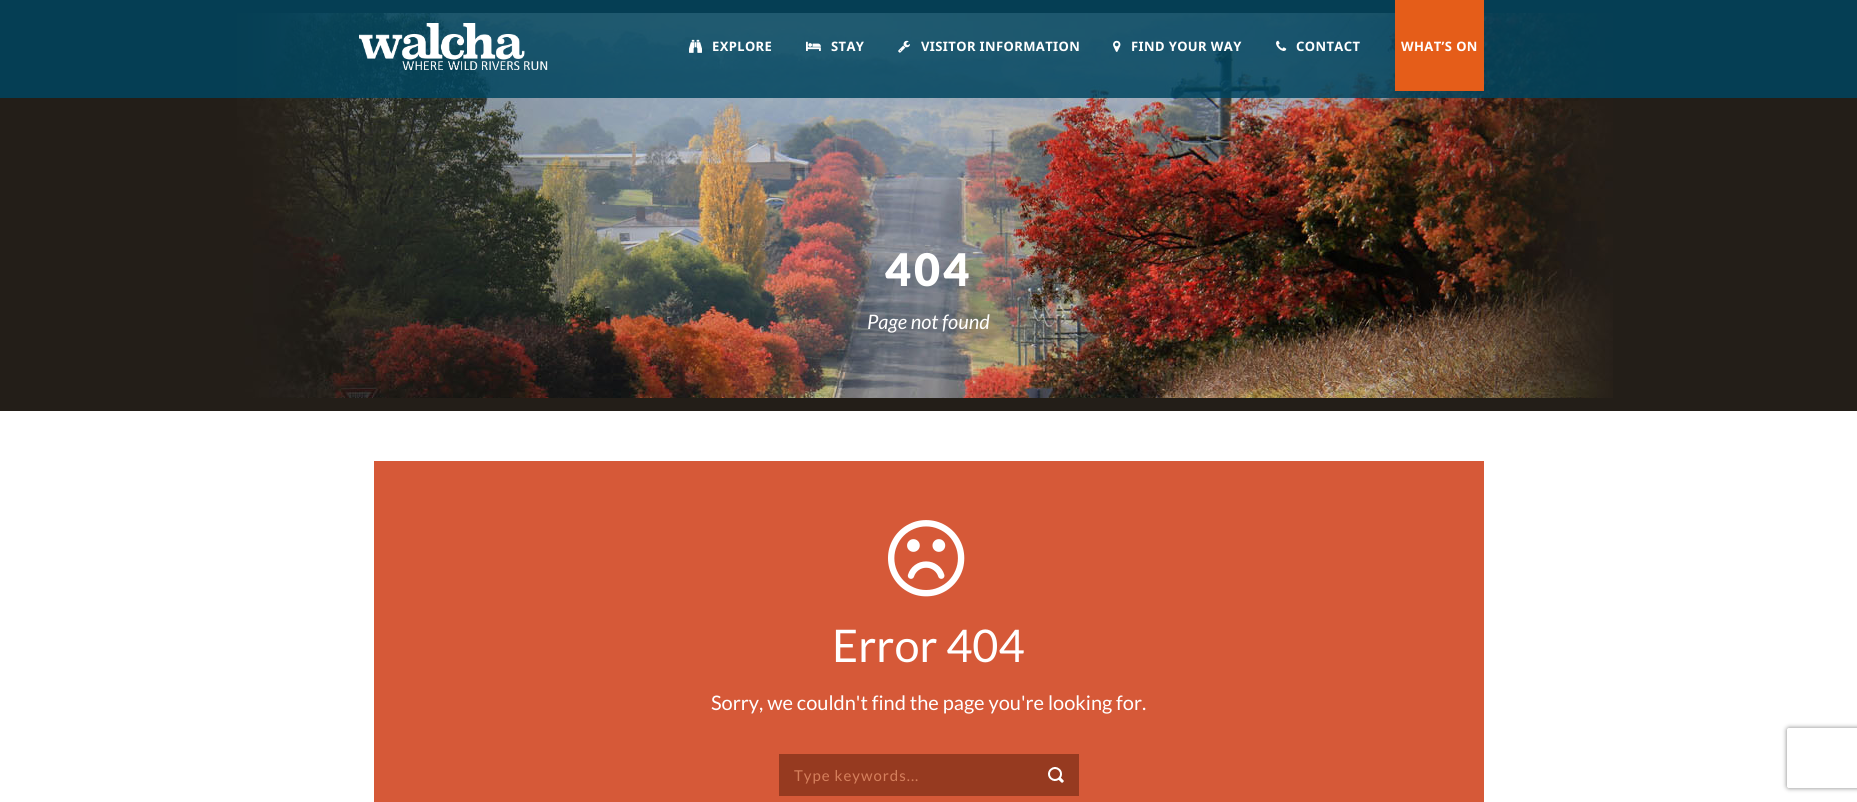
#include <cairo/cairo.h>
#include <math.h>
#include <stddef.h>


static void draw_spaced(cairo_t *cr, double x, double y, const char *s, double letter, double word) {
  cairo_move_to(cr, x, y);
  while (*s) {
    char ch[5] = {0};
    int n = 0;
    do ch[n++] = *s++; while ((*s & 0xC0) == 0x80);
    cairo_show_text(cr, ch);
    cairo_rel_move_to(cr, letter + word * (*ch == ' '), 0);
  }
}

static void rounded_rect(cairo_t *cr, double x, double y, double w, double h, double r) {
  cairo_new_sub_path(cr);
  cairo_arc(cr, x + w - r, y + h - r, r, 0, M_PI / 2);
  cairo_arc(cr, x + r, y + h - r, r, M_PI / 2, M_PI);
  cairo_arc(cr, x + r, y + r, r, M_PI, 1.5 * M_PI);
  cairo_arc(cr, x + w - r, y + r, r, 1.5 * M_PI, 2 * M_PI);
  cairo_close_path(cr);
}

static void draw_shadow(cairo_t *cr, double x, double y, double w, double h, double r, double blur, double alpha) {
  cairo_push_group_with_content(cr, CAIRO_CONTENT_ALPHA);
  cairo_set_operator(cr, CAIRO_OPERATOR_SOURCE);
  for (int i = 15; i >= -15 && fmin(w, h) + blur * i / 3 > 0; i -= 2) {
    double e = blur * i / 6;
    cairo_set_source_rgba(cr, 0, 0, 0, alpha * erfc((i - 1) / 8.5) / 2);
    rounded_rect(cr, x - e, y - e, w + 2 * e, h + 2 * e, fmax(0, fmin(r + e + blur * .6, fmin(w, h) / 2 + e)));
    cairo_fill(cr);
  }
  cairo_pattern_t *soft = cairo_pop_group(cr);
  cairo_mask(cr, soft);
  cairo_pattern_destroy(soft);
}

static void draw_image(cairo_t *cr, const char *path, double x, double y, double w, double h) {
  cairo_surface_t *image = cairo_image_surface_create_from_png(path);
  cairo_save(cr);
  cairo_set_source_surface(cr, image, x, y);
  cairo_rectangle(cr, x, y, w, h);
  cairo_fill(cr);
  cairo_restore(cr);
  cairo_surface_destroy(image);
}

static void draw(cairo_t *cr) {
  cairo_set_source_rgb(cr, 1, 1, 1);
  cairo_paint(cr);
  cairo_set_source_rgb(cr, 35 / 255.0, 30 / 255.0, 24 / 255.0);
  cairo_rectangle(cr, 0, 0, 1857, 411);
  cairo_fill(cr);
  draw_image(cr, "images/7.png", 237, 13, 1376, 385);
  cairo_set_source_rgba(cr, 0, 69 / 255.0, 94 / 255.0, 0.85);
  cairo_rectangle(cr, 0, 0, 1857, 98);
  cairo_fill(cr);
  draw_image(cr, "images/1.png", 359, 23, 189, 47);
  draw_image(cr, "images/2.png", 689, 39, 13, 14);
  draw_image(cr, "images/3.png", 806, 41, 15, 10);
  draw_image(cr, "images/4.png", 898, 40, 12, 13);
  draw_image(cr, "images/5.png", 1113, 40, 8, 12);
  draw_image(cr, "images/6.png", 1276, 40, 11, 11);
  cairo_set_source_rgb(cr, 229 / 255.0, 93 / 255.0, 25 / 255.0);
  cairo_rectangle(cr, 1395, 0, 89, 91);
  cairo_fill(cr);
  cairo_set_source_rgb(cr, 214 / 255.0, 89 / 255.0, 56 / 255.0);
  cairo_rectangle(cr, 374, 461, 1110, 341);
  cairo_fill(cr);
  draw_image(cr, "images/8.png", 888, 520, 77, 77);
  cairo_set_source_rgb(cr, 150 / 255.0, 58 / 255.0, 32 / 255.0);
  cairo_rectangle(cr, 779, 754, 300, 42);
  cairo_fill(cr);
  draw_image(cr, "images/9.png", 1048, 767, 16, 16);
  cairo_save(cr);
  cairo_set_fill_rule(cr, CAIRO_FILL_RULE_EVEN_ODD);
  cairo_new_path(cr);
  cairo_move_to(cr, 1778, 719);
  cairo_line_to(cr, 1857, 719);
  cairo_line_to(cr, 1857, 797);
  cairo_line_to(cr, 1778, 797);
  cairo_close_path(cr);
  cairo_move_to(cr, 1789, 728);
  cairo_line_to(cr, 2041, 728);
  cairo_curve_to(cr, 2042, 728, 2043, 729, 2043, 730);
  cairo_line_to(cr, 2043, 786);
  cairo_curve_to(cr, 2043, 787, 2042, 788, 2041, 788);
  cairo_line_to(cr, 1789, 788);
  cairo_curve_to(cr, 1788, 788, 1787, 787, 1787, 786);
  cairo_line_to(cr, 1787, 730);
  cairo_curve_to(cr, 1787, 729, 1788, 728, 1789, 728);
  cairo_close_path(cr);
  cairo_clip(cr);
  cairo_set_source_rgb(cr, 128 / 255.0, 128 / 255.0, 128 / 255.0);
  draw_shadow(cr, 1787, 728, 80, 60, 2, 2.5, 1);
  cairo_restore(cr);
  cairo_select_font_face(cr, "Noto Sans", CAIRO_FONT_SLANT_NORMAL, CAIRO_FONT_WEIGHT_BOLD);
  cairo_set_font_size(cr, 13);
  cairo_set_source_rgb(cr, 1, 1, 1);
  draw_spaced(cr, 712, 51, "EXPLORE", 0.4, 0);
  draw_spaced(cr, 831, 51, "STAY", 0.4, 0);
  draw_spaced(cr, 921, 51, "VISITOR INFORMATION", 0.4, 0);
  draw_spaced(cr, 1131, 51, "FIND YOUR WAY", 0.4, 0);
  draw_spaced(cr, 1296, 51, "CONTACT", 0.4, 0);
  draw_spaced(cr, 1401, 51, "WHAT’S ON", 0.4, 0);
  cairo_select_font_face(cr, "Lato Black", CAIRO_FONT_SLANT_NORMAL, CAIRO_FONT_WEIGHT_NORMAL);
  cairo_set_font_size(cr, 45);
  draw_spaced(cr, 885, 286, "404", 3, 0);
  cairo_select_font_face(cr, "Lato", CAIRO_FONT_SLANT_ITALIC, CAIRO_FONT_WEIGHT_NORMAL);
  cairo_set_font_size(cr, 20);
  cairo_move_to(cr, 867, 329);
  cairo_show_text(cr, "Page not found");
  cairo_select_font_face(cr, "Lato", CAIRO_FONT_SLANT_NORMAL, CAIRO_FONT_WEIGHT_NORMAL);
  cairo_set_font_size(cr, 45);
  cairo_move_to(cr, 832, 662);
  cairo_show_text(cr, "Error 404");
  cairo_set_font_size(cr, 20);
  cairo_move_to(cr, 711, 710);
  cairo_show_text(cr, "Sorry, we couldn't find the page you're looking for.");
  cairo_set_font_size(cr, 15);
  cairo_set_source_rgb(cr, 213 / 255.0, 127 / 255.0, 92 / 255.0);
  draw_spaced(cr, 794, 781, "Type keywords...", 1, 0);
}

int main(void) {
  cairo_surface_t *surface = cairo_image_surface_create(CAIRO_FORMAT_RGB24, 1857, 802);
  cairo_t *cr = cairo_create(surface);
  cairo_font_options_t *options = cairo_font_options_create();
  cairo_font_options_set_hint_metrics(options, CAIRO_HINT_METRICS_OFF);
  cairo_font_options_set_hint_style(options, CAIRO_HINT_STYLE_NONE);
  cairo_set_font_options(cr, options);
  cairo_set_miter_limit(cr, 4);
  draw(cr);
  cairo_surface_write_to_png(surface, "out.png");
  cairo_font_options_destroy(options);
  cairo_destroy(cr);
  cairo_surface_destroy(surface);
  return 0;
}
